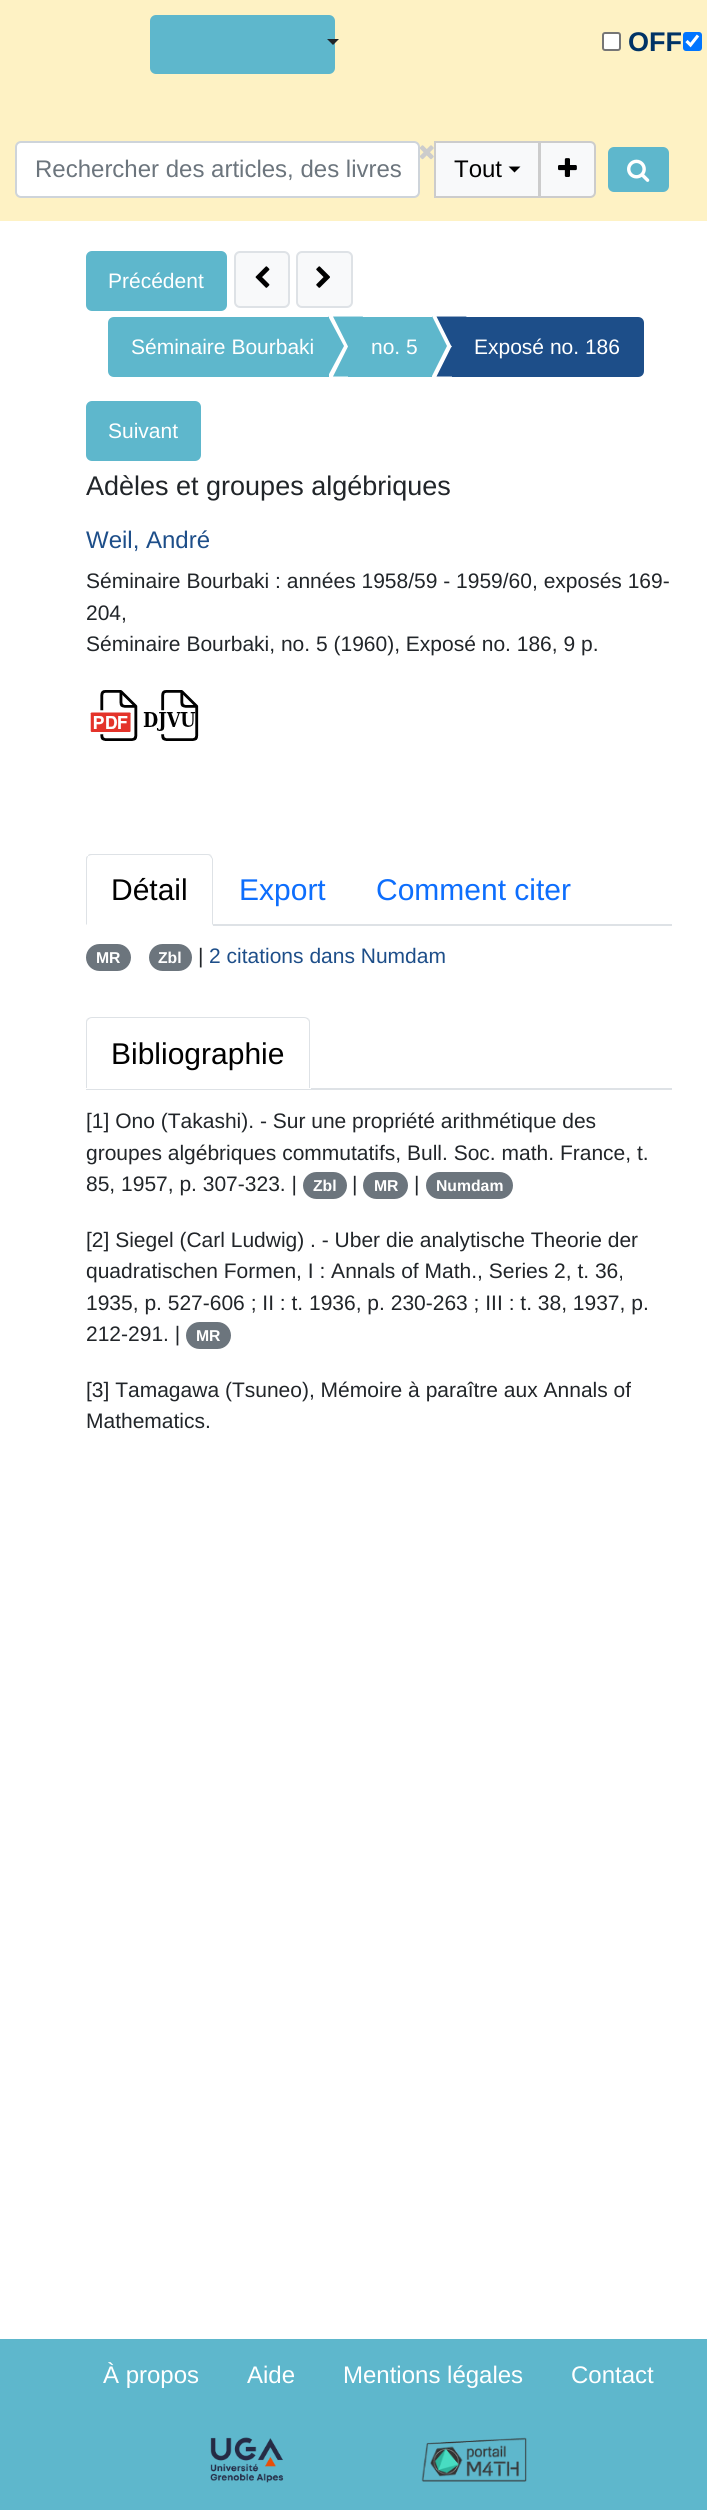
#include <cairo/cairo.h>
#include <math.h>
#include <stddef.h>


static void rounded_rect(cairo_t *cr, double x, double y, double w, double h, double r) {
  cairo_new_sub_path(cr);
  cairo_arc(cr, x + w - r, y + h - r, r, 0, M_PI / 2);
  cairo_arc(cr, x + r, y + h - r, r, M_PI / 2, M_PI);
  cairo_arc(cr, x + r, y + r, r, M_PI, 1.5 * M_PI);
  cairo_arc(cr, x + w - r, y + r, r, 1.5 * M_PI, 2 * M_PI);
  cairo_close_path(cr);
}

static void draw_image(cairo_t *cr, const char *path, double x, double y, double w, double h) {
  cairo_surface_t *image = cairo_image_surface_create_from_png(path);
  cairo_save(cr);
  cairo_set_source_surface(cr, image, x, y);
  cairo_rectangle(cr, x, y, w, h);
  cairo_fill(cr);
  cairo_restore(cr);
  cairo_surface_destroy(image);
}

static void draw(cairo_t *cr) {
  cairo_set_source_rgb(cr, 1, 1, 1);
  cairo_paint(cr);
  cairo_set_source_rgb(cr, 254 / 255.0, 242 / 255.0, 196 / 255.0);
  cairo_rectangle(cr, 0, 0, 707, 221);
  cairo_fill(cr);
  cairo_set_source_rgb(cr, 94 / 255.0, 183 / 255.0, 204 / 255.0);
  rounded_rect(cr, 150, 15, 185, 59, 6);
  cairo_fill(cr);
  cairo_set_source_rgb(cr, 33 / 255.0, 37 / 255.0, 41 / 255.0);
  cairo_new_path(cr);
  cairo_move_to(cr, 327, 39);
  cairo_line_to(cr, 339, 39);
  cairo_line_to(cr, 333, 45);
  cairo_close_path(cr);
  cairo_fill(cr);
  cairo_set_source_rgb(cr, 1, 1, 1);
  rounded_rect(cr, 603, 33, 17, 17, 2);
  cairo_fill_preserve(cr);
  cairo_set_source_rgb(cr, 118 / 255.0, 118 / 255.0, 118 / 255.0);
  cairo_stroke(cr);
  cairo_set_source_rgb(cr, 0, 117 / 255.0, 1);
  rounded_rect(cr, 683, 32, 19, 19, 3);
  cairo_fill(cr);
  cairo_new_path(cr);
  cairo_move_to(cr, 686.5, 41);
  cairo_line_to(cr, 690.5, 45);
  cairo_line_to(cr, 698, 35.5);
  cairo_set_source_rgb(cr, 1, 1, 1);
  cairo_set_line_width(cr, 3.1);
  cairo_stroke(cr);
  draw_image(cr, "images/1.png", 420, 145, 14, 15);
  cairo_set_source_rgb(cr, 248 / 255.0, 249 / 255.0, 250 / 255.0);
  cairo_rectangle(cr, 435, 142, 104, 55);
  cairo_fill_preserve(cr);
  cairo_set_source_rgb(cr, 204 / 255.0, 204 / 255.0, 204 / 255.0);
  cairo_set_line_width(cr, 2);
  cairo_stroke(cr);
  cairo_set_source_rgb(cr, 248 / 255.0, 249 / 255.0, 250 / 255.0);
  cairo_new_path(cr);
  cairo_move_to(cr, 540, 142);
  cairo_line_to(cr, 590, 142);
  cairo_curve_to(cr, 593, 142, 595, 144, 595, 147);
  cairo_line_to(cr, 595, 192);
  cairo_curve_to(cr, 595, 195, 593, 197, 590, 197);
  cairo_line_to(cr, 540, 197);
  cairo_close_path(cr);
  cairo_fill_preserve(cr);
  cairo_set_source_rgb(cr, 204 / 255.0, 204 / 255.0, 204 / 255.0);
  cairo_stroke(cr);
  draw_image(cr, "images/2.png", 558, 158, 19, 19);
  cairo_set_source_rgb(cr, 1, 1, 1);
  rounded_rect(cr, 16, 142, 403, 55, 5);
  cairo_fill_preserve(cr);
  cairo_set_source_rgb(cr, 206 / 255.0, 212 / 255.0, 218 / 255.0);
  cairo_stroke(cr);
  cairo_set_source_rgb(cr, 0, 0, 0);
  cairo_new_path(cr);
  cairo_move_to(cr, 508.5, 166.5);
  cairo_line_to(cr, 520.5, 166.5);
  cairo_line_to(cr, 514.5, 172.5);
  cairo_close_path(cr);
  cairo_fill(cr);
  cairo_set_source_rgb(cr, 94 / 255.0, 183 / 255.0, 204 / 255.0);
  rounded_rect(cr, 609, 148, 59, 43, 5);
  cairo_fill_preserve(cr);
  cairo_stroke(cr);
  draw_image(cr, "images/3.png", 627, 159, 23, 23);
  cairo_set_source_rgb(cr, 248 / 255.0, 249 / 255.0, 250 / 255.0);
  rounded_rect(cr, 235, 252, 54, 55, 5);
  cairo_fill_preserve(cr);
  cairo_set_source_rgb(cr, 222 / 255.0, 226 / 255.0, 230 / 255.0);
  cairo_stroke(cr);
  draw_image(cr, "images/4.png", 255, 266, 15, 22);
  cairo_set_source_rgb(cr, 248 / 255.0, 249 / 255.0, 250 / 255.0);
  rounded_rect(cr, 297, 252, 55, 55, 5);
  cairo_fill_preserve(cr);
  cairo_set_source_rgb(cr, 222 / 255.0, 226 / 255.0, 230 / 255.0);
  cairo_stroke(cr);
  draw_image(cr, "images/5.png", 316, 266, 14, 22);
  cairo_set_source_rgb(cr, 94 / 255.0, 183 / 255.0, 204 / 255.0);
  rounded_rect(cr, 86, 251, 141, 60, 6);
  cairo_fill(cr);
  cairo_new_path(cr);
  cairo_move_to(cr, 114, 317);
  cairo_line_to(cr, 329, 317);
  cairo_line_to(cr, 329, 377);
  cairo_line_to(cr, 114, 377);
  cairo_curve_to(cr, 110.5, 377, 108, 374.5, 108, 371);
  cairo_line_to(cr, 108, 323);
  cairo_curve_to(cr, 108, 319.5, 110.5, 317, 114, 317);
  cairo_close_path(cr);
  cairo_fill(cr);
  cairo_new_path(cr);
  cairo_move_to(cr, 328, 376);
  cairo_line_to(cr, 328, 316);
  cairo_line_to(cr, 344, 346);
  cairo_close_path(cr);
  cairo_fill(cr);
  cairo_rectangle(cr, 363, 317, 69, 60);
  cairo_fill(cr);
  cairo_new_path(cr);
  cairo_move_to(cr, 333, 316.5);
  cairo_line_to(cr, 363, 316.5);
  cairo_line_to(cr, 348, 346.5);
  cairo_close_path(cr);
  cairo_fill(cr);
  cairo_rectangle(cr, 348, 317, 15, 60);
  cairo_fill(cr);
  cairo_new_path(cr);
  cairo_move_to(cr, 363, 376.5);
  cairo_line_to(cr, 333, 376.5);
  cairo_line_to(cr, 348, 346.5);
  cairo_close_path(cr);
  cairo_fill(cr);
  cairo_new_path(cr);
  cairo_move_to(cr, 432, 376);
  cairo_line_to(cr, 432, 316);
  cairo_line_to(cr, 447, 346);
  cairo_close_path(cr);
  cairo_fill(cr);
  cairo_set_source_rgb(cr, 29 / 255.0, 78 / 255.0, 137 / 255.0);
  cairo_new_path(cr);
  cairo_move_to(cr, 467, 317);
  cairo_line_to(cr, 638, 317);
  cairo_curve_to(cr, 641.5, 317, 644, 319.5, 644, 323);
  cairo_line_to(cr, 644, 371);
  cairo_curve_to(cr, 644, 374.5, 641.5, 377, 638, 377);
  cairo_line_to(cr, 467, 377);
  cairo_close_path(cr);
  cairo_fill(cr);
  cairo_new_path(cr);
  cairo_move_to(cr, 436.5, 316.5);
  cairo_line_to(cr, 466.5, 316.5);
  cairo_line_to(cr, 451.5, 346.5);
  cairo_close_path(cr);
  cairo_fill(cr);
  cairo_rectangle(cr, 452, 317, 15, 60);
  cairo_fill(cr);
  cairo_new_path(cr);
  cairo_move_to(cr, 466.5, 376.5);
  cairo_line_to(cr, 436.5, 376.5);
  cairo_line_to(cr, 451.5, 346.5);
  cairo_close_path(cr);
  cairo_fill(cr);
  cairo_set_source_rgb(cr, 94 / 255.0, 183 / 255.0, 204 / 255.0);
  rounded_rect(cr, 86, 401, 115, 60, 6);
  cairo_fill(cr);
  draw_image(cr, "images/6.png", 90, 690, 48, 51);
  draw_image(cr, "images/7.png", 143, 690, 56, 51);
  cairo_set_source_rgb(cr, 222 / 255.0, 226 / 255.0, 230 / 255.0);
  cairo_rectangle(cr, 213, 924, 459, 2);
  cairo_fill(cr);
  cairo_new_path(cr);
  cairo_move_to(cr, 92, 854);
  cairo_curve_to(cr, 90, 854, 88, 854, 88, 856);
  cairo_curve_to(cr, 89, 856, 90, 855, 92, 855);
  cairo_line_to(cr, 207, 855);
  cairo_curve_to(cr, 208, 855, 209, 855, 210, 856);
  cairo_line_to(cr, 211, 855);
  cairo_curve_to(cr, 210, 854, 208, 854, 207, 854);
  cairo_close_path(cr);
  cairo_fill(cr);
  cairo_new_path(cr);
  cairo_move_to(cr, 211, 855);
  cairo_line_to(cr, 213, 859);
  cairo_line_to(cr, 213, 926);
  cairo_line_to(cr, 212, 924);
  cairo_line_to(cr, 212, 859);
  cairo_line_to(cr, 210, 856);
  cairo_close_path(cr);
  cairo_fill(cr);
  cairo_set_source_rgb(cr, 1, 1, 1);
  cairo_new_path(cr);
  cairo_move_to(cr, 213, 926);
  cairo_line_to(cr, 86, 926);
  cairo_line_to(cr, 87, 924);
  cairo_line_to(cr, 212, 924);
  cairo_close_path(cr);
  cairo_fill(cr);
  cairo_set_source_rgb(cr, 222 / 255.0, 226 / 255.0, 230 / 255.0);
  cairo_new_path(cr);
  cairo_move_to(cr, 88, 856);
  cairo_curve_to(cr, 86, 856, 86, 858, 86, 860);
  cairo_line_to(cr, 86, 925);
  cairo_line_to(cr, 87, 924);
  cairo_line_to(cr, 87, 860);
  cairo_curve_to(cr, 87, 858, 88, 857, 88, 856);
  cairo_close_path(cr);
  cairo_fill(cr);
  cairo_set_source_rgb(cr, 108 / 255.0, 117 / 255.0, 125 / 255.0);
  rounded_rect(cr, 86, 944, 45, 27, 13.5);
  cairo_fill(cr);
  rounded_rect(cr, 149, 944, 43, 27, 13.5);
  cairo_fill(cr);
  cairo_set_source_rgb(cr, 222 / 255.0, 226 / 255.0, 230 / 255.0);
  cairo_rectangle(cr, 86, 1088, 586, 2);
  cairo_fill(cr);
  cairo_set_source_rgb(cr, 1, 1, 1);
  cairo_new_path(cr);
  cairo_move_to(cr, 92, 1017);
  cairo_line_to(cr, 305, 1017);
  cairo_curve_to(cr, 308.5, 1017, 311, 1019.5, 311, 1023);
  cairo_line_to(cr, 311, 1089);
  cairo_line_to(cr, 86, 1089);
  cairo_line_to(cr, 86, 1023);
  cairo_curve_to(cr, 86, 1019.5, 88.5, 1017, 92, 1017);
  cairo_close_path(cr);
  cairo_fill(cr);
  cairo_set_source_rgb(cr, 222 / 255.0, 226 / 255.0, 230 / 255.0);
  cairo_new_path(cr);
  cairo_move_to(cr, 92, 1017);
  cairo_curve_to(cr, 90, 1017, 88, 1018, 87, 1019);
  cairo_line_to(cr, 88, 1020);
  cairo_curve_to(cr, 89, 1019, 90, 1018, 92, 1018);
  cairo_line_to(cr, 304, 1018);
  cairo_curve_to(cr, 306, 1018, 307, 1019, 308, 1020);
  cairo_line_to(cr, 309, 1019);
  cairo_curve_to(cr, 308, 1018, 306, 1017, 304, 1017);
  cairo_close_path(cr);
  cairo_fill(cr);
  cairo_new_path(cr);
  cairo_move_to(cr, 309, 1019);
  cairo_curve_to(cr, 310, 1020, 310, 1022, 310, 1023);
  cairo_line_to(cr, 310, 1088);
  cairo_line_to(cr, 309, 1088);
  cairo_line_to(cr, 309, 1023);
  cairo_curve_to(cr, 309, 1022, 309, 1021, 308, 1020);
  cairo_close_path(cr);
  cairo_fill(cr);
  cairo_new_path(cr);
  cairo_move_to(cr, 87, 1019);
  cairo_curve_to(cr, 86, 1020, 86, 1022, 86, 1023);
  cairo_line_to(cr, 86, 1088);
  cairo_line_to(cr, 87, 1088);
  cairo_line_to(cr, 87, 1023);
  cairo_curve_to(cr, 87, 1022, 87, 1021, 88, 1020);
  cairo_close_path(cr);
  cairo_fill(cr);
  cairo_set_source_rgb(cr, 108 / 255.0, 117 / 255.0, 125 / 255.0);
  rounded_rect(cr, 303, 1172, 44, 27, 13.5);
  cairo_fill(cr);
  rounded_rect(cr, 363, 1172, 45, 27, 13.5);
  cairo_fill(cr);
  rounded_rect(cr, 426, 1172, 87, 27, 13.5);
  cairo_fill(cr);
  rounded_rect(cr, 186, 1322, 45, 27, 13.5);
  cairo_fill(cr);
  cairo_set_source_rgb(cr, 94 / 255.0, 183 / 255.0, 204 / 255.0);
  cairo_rectangle(cr, 0, 2339, 707, 171);
  cairo_fill(cr);
  draw_image(cr, "images/8.png", 210, 2437, 74, 46);
  draw_image(cr, "images/9.png", 421, 2437, 106, 45);
  cairo_select_font_face(cr, "Liberation Sans", CAIRO_FONT_SLANT_NORMAL, CAIRO_FONT_WEIGHT_BOLD);
  cairo_set_font_size(cr, 27);
  cairo_set_source_rgb(cr, 0, 51 / 255.0, 102 / 255.0);
  cairo_move_to(cr, 628, 51);
  cairo_show_text(cr, "OFF");
  cairo_select_font_face(cr, "Liberation Sans", CAIRO_FONT_SLANT_NORMAL, CAIRO_FONT_WEIGHT_NORMAL);
  cairo_set_font_size(cr, 24);
  cairo_set_source_rgb(cr, 108 / 255.0, 117 / 255.0, 125 / 255.0);
  cairo_move_to(cr, 35, 177);
  cairo_show_text(cr, "Rechercher des articles, des livres");
  cairo_set_source_rgb(cr, 0, 0, 0);
  cairo_move_to(cr, 454, 177);
  cairo_show_text(cr, "Tout");
  cairo_set_font_size(cr, 21);
  cairo_set_source_rgb(cr, 1, 1, 1);
  cairo_move_to(cr, 108, 288);
  cairo_show_text(cr, "Précédent");
  cairo_move_to(cr, 131, 354);
  cairo_show_text(cr, "Séminaire Bourbaki");
  cairo_move_to(cr, 371, 354);
  cairo_show_text(cr, "no. 5");
  cairo_move_to(cr, 474, 354);
  cairo_show_text(cr, "Exposé no. 186");
  cairo_move_to(cr, 108, 438);
  cairo_show_text(cr, "Suivant");
  cairo_set_font_size(cr, 27);
  cairo_set_source_rgb(cr, 33 / 255.0, 37 / 255.0, 41 / 255.0);
  cairo_move_to(cr, 86, 495);
  cairo_show_text(cr, "Adèles et groupes algébriques");
  cairo_set_font_size(cr, 24);
  cairo_set_source_rgb(cr, 29 / 255.0, 78 / 255.0, 137 / 255.0);
  cairo_move_to(cr, 86, 548);
  cairo_show_text(cr, "Weil, André");
  cairo_set_font_size(cr, 21);
  cairo_set_source_rgb(cr, 33 / 255.0, 37 / 255.0, 41 / 255.0);
  cairo_move_to(cr, 86, 588);
  cairo_show_text(cr, "Séminaire Bourbaki : années 1958/59 - 1959/60, exposés 169-");
  cairo_move_to(cr, 86, 620);
  cairo_show_text(cr, "204,");
  cairo_move_to(cr, 86, 651);
  cairo_show_text(cr, "Séminaire Bourbaki, no. 5 (1960), Exposé no. 186, 9 p.");
  cairo_set_font_size(cr, 30);
  cairo_set_source_rgb(cr, 0, 0, 0);
  cairo_move_to(cr, 111, 900);
  cairo_show_text(cr, "Détail");
  cairo_set_source_rgb(cr, 13 / 255.0, 110 / 255.0, 253 / 255.0);
  cairo_move_to(cr, 239, 900);
  cairo_show_text(cr, "Export");
  cairo_move_to(cr, 376, 900);
  cairo_show_text(cr, "Comment citer");
  cairo_select_font_face(cr, "Liberation Sans", CAIRO_FONT_SLANT_NORMAL, CAIRO_FONT_WEIGHT_BOLD);
  cairo_set_font_size(cr, 15.75);
  cairo_set_source_rgb(cr, 1, 1, 1);
  cairo_move_to(cr, 96, 963);
  cairo_show_text(cr, "MR");
  cairo_move_to(cr, 158, 963);
  cairo_show_text(cr, "Zbl");
  cairo_select_font_face(cr, "Liberation Sans", CAIRO_FONT_SLANT_NORMAL, CAIRO_FONT_WEIGHT_NORMAL);
  cairo_set_font_size(cr, 21);
  cairo_set_source_rgb(cr, 33 / 255.0, 37 / 255.0, 41 / 255.0);
  cairo_move_to(cr, 198, 963);
  cairo_show_text(cr, "|");
  cairo_set_source_rgb(cr, 29 / 255.0, 78 / 255.0, 137 / 255.0);
  cairo_move_to(cr, 209, 963);
  cairo_show_text(cr, "2 citations dans Numdam");
  cairo_set_font_size(cr, 30);
  cairo_set_source_rgb(cr, 0, 0, 0);
  cairo_move_to(cr, 111, 1064);
  cairo_show_text(cr, "Bibliographie");
  cairo_set_font_size(cr, 21);
  cairo_set_source_rgb(cr, 33 / 255.0, 37 / 255.0, 41 / 255.0);
  cairo_move_to(cr, 86, 1128);
  cairo_show_text(cr, "[1] Ono (Takashi). - Sur une propriété arithmétique des");
  cairo_move_to(cr, 86, 1160);
  cairo_show_text(cr, "groupes algébriques commutatifs, Bull. Soc. math. France, t.");
  cairo_move_to(cr, 86, 1191);
  cairo_show_text(cr, "85, 1957, p. 307-323. |");
  cairo_select_font_face(cr, "Liberation Sans", CAIRO_FONT_SLANT_NORMAL, CAIRO_FONT_WEIGHT_BOLD);
  cairo_set_font_size(cr, 15.75);
  cairo_set_source_rgb(cr, 1, 1, 1);
  cairo_move_to(cr, 313, 1191);
  cairo_show_text(cr, "Zbl");
  cairo_select_font_face(cr, "Liberation Sans", CAIRO_FONT_SLANT_NORMAL, CAIRO_FONT_WEIGHT_NORMAL);
  cairo_set_font_size(cr, 21);
  cairo_set_source_rgb(cr, 33 / 255.0, 37 / 255.0, 41 / 255.0);
  cairo_move_to(cr, 352, 1191);
  cairo_show_text(cr, "|");
  cairo_select_font_face(cr, "Liberation Sans", CAIRO_FONT_SLANT_NORMAL, CAIRO_FONT_WEIGHT_BOLD);
  cairo_set_font_size(cr, 15.75);
  cairo_set_source_rgb(cr, 1, 1, 1);
  cairo_move_to(cr, 374, 1191);
  cairo_show_text(cr, "MR");
  cairo_select_font_face(cr, "Liberation Sans", CAIRO_FONT_SLANT_NORMAL, CAIRO_FONT_WEIGHT_NORMAL);
  cairo_set_font_size(cr, 21);
  cairo_set_source_rgb(cr, 33 / 255.0, 37 / 255.0, 41 / 255.0);
  cairo_move_to(cr, 414, 1191);
  cairo_show_text(cr, "|");
  cairo_select_font_face(cr, "Liberation Sans", CAIRO_FONT_SLANT_NORMAL, CAIRO_FONT_WEIGHT_BOLD);
  cairo_set_font_size(cr, 15.75);
  cairo_set_source_rgb(cr, 1, 1, 1);
  cairo_move_to(cr, 436, 1191);
  cairo_show_text(cr, "Numdam");
  cairo_select_font_face(cr, "Liberation Sans", CAIRO_FONT_SLANT_NORMAL, CAIRO_FONT_WEIGHT_NORMAL);
  cairo_set_font_size(cr, 21);
  cairo_set_source_rgb(cr, 33 / 255.0, 37 / 255.0, 41 / 255.0);
  cairo_move_to(cr, 86, 1247);
  cairo_show_text(cr, "[2] Siegel (Carl Ludwig) . - Uber die analytische Theorie der");
  cairo_move_to(cr, 86, 1278);
  cairo_show_text(cr, "quadratischen Formen, I : Annals of Math., Series 2, t. 36,");
  cairo_move_to(cr, 86, 1310);
  cairo_show_text(cr, "1935, p. 527-606 ; II : t. 1936, p. 230-263 ; III : t. 38, 1937, p.");
  cairo_move_to(cr, 86, 1341);
  cairo_show_text(cr, "212-291. |");
  cairo_select_font_face(cr, "Liberation Sans", CAIRO_FONT_SLANT_NORMAL, CAIRO_FONT_WEIGHT_BOLD);
  cairo_set_font_size(cr, 15.75);
  cairo_set_source_rgb(cr, 1, 1, 1);
  cairo_move_to(cr, 196, 1341);
  cairo_show_text(cr, "MR");
  cairo_select_font_face(cr, "Liberation Sans", CAIRO_FONT_SLANT_NORMAL, CAIRO_FONT_WEIGHT_NORMAL);
  cairo_set_font_size(cr, 21);
  cairo_set_source_rgb(cr, 33 / 255.0, 37 / 255.0, 41 / 255.0);
  cairo_move_to(cr, 86, 1397);
  cairo_show_text(cr, "[3] Tamagawa (Tsuneo), Mémoire à paraître aux Annals of");
  cairo_move_to(cr, 86, 1428);
  cairo_show_text(cr, "Mathematics.");
  cairo_set_font_size(cr, 24);
  cairo_set_source_rgb(cr, 1, 1, 1);
  cairo_move_to(cr, 103, 2383);
  cairo_show_text(cr, "À propos");
  cairo_move_to(cr, 247, 2383);
  cairo_show_text(cr, "Aide");
  cairo_move_to(cr, 343, 2383);
  cairo_show_text(cr, "Mentions légales");
  cairo_move_to(cr, 571, 2383);
  cairo_show_text(cr, "Contact");
}

int main(void) {
  cairo_surface_t *surface = cairo_image_surface_create(CAIRO_FORMAT_RGB24, 707, 2510);
  cairo_t *cr = cairo_create(surface);
  cairo_font_options_t *options = cairo_font_options_create();
  cairo_font_options_set_hint_metrics(options, CAIRO_HINT_METRICS_OFF);
  cairo_font_options_set_hint_style(options, CAIRO_HINT_STYLE_NONE);
  cairo_set_font_options(cr, options);
  cairo_set_miter_limit(cr, 4);
  draw(cr);
  cairo_surface_write_to_png(surface, "out.png");
  cairo_font_options_destroy(options);
  cairo_destroy(cr);
  cairo_surface_destroy(surface);
  return 0;
}
